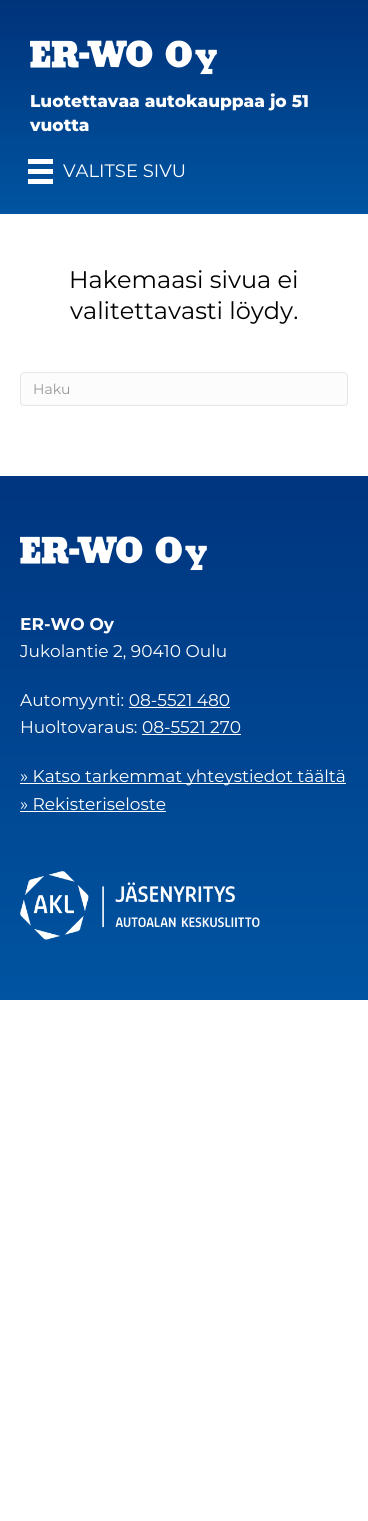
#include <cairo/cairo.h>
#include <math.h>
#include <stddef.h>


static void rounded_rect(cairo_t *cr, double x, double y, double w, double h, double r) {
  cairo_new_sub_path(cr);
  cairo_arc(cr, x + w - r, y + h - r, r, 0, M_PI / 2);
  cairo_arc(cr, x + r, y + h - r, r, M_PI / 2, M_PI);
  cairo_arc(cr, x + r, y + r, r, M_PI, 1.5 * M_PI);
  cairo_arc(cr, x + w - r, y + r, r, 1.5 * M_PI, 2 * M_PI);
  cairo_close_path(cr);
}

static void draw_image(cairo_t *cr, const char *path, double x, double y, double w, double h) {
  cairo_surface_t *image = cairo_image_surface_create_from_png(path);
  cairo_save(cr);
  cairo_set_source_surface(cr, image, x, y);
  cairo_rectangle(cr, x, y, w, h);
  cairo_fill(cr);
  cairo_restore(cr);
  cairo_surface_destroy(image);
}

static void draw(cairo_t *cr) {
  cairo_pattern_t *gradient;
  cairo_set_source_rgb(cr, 1, 1, 1);
  cairo_paint(cr);
  gradient = cairo_pattern_create_linear(184, 0, 184, 214);
  cairo_pattern_add_color_stop_rgba(gradient, 0, 0, 51 / 255.0, 122 / 255.0, 1);
  cairo_pattern_add_color_stop_rgba(gradient, 1, 0, 84 / 255.0, 161 / 255.0, 1);
  cairo_set_source(cr, gradient);
  cairo_pattern_destroy(gradient);
  cairo_rectangle(cr, 0, 0, 368, 214);
  cairo_fill(cr);
  draw_image(cr, "images/1.png", 30, 40, 187, 35);
  cairo_set_source_rgb(cr, 1, 1, 1);
  cairo_rectangle(cr, 28, 159, 25, 5);
  cairo_fill(cr);
  cairo_rectangle(cr, 28, 169, 25, 5);
  cairo_fill(cr);
  cairo_rectangle(cr, 28, 179, 25, 5);
  cairo_fill(cr);
  cairo_set_source_rgb(cr, 252 / 255.0, 252 / 255.0, 252 / 255.0);
  rounded_rect(cr, 20.5, 372.5, 327, 33, 3.5);
  cairo_fill_preserve(cr);
  cairo_set_source_rgb(cr, 230 / 255.0, 230 / 255.0, 230 / 255.0);
  cairo_set_line_width(cr, 1);
  cairo_stroke(cr);
  gradient = cairo_pattern_create_linear(184, 476, 184, 1000);
  cairo_pattern_add_color_stop_rgba(gradient, 0, 0, 53 / 255.0, 127 / 255.0, 1);
  cairo_pattern_add_color_stop_rgba(gradient, 1, 0, 84 / 255.0, 161 / 255.0, 1);
  cairo_set_source(cr, gradient);
  cairo_pattern_destroy(gradient);
  cairo_rectangle(cr, 0, 476, 368, 524);
  cairo_fill(cr);
  draw_image(cr, "images/2.png", 20, 536, 187, 35);
  cairo_set_source_rgb(cr, 1, 1, 1);
  cairo_rectangle(cr, 129, 707, 101, 1);
  cairo_fill(cr);
  cairo_rectangle(cr, 142, 734, 99, 1);
  cairo_fill(cr);
  cairo_rectangle(cr, 20, 783, 326, 1);
  cairo_fill(cr);
  cairo_rectangle(cr, 20, 811, 146, 1);
  cairo_fill(cr);
  draw_image(cr, "images/3.png", 20, 871, 240, 69);
  cairo_select_font_face(cr, "Montserrat ExtraBold", CAIRO_FONT_SLANT_NORMAL, CAIRO_FONT_WEIGHT_NORMAL);
  cairo_set_font_size(cr, 17);
  cairo_move_to(cr, 30, 107);
  cairo_show_text(cr, "Luotettavaa autokauppaa jo 51");
  cairo_move_to(cr, 30, 131);
  cairo_show_text(cr, "vuotta");
  cairo_select_font_face(cr, "Montserrat", CAIRO_FONT_SLANT_NORMAL, CAIRO_FONT_WEIGHT_NORMAL);
  cairo_set_font_size(cr, 18);
  cairo_move_to(cr, 63, 177);
  cairo_show_text(cr, "VALITSE SIVU");
  cairo_set_font_size(cr, 24);
  cairo_set_source_rgb(cr, 0, 0, 0);
  cairo_move_to(cr, 69, 288);
  cairo_show_text(cr, "Hakemaasi sivua ei");
  cairo_move_to(cr, 70, 319);
  cairo_show_text(cr, "valitettavasti löydy.");
  cairo_set_font_size(cr, 14);
  cairo_set_source_rgb(cr, 151 / 255.0, 151 / 255.0, 151 / 255.0);
  cairo_move_to(cr, 33, 394);
  cairo_show_text(cr, "Haku");
  cairo_select_font_face(cr, "Montserrat", CAIRO_FONT_SLANT_NORMAL, CAIRO_FONT_WEIGHT_BOLD);
  cairo_set_font_size(cr, 17);
  cairo_set_source_rgb(cr, 1, 1, 1);
  cairo_move_to(cr, 20, 630);
  cairo_show_text(cr, "ER-WO Oy");
  cairo_select_font_face(cr, "Montserrat", CAIRO_FONT_SLANT_NORMAL, CAIRO_FONT_WEIGHT_NORMAL);
  cairo_move_to(cr, 20, 657);
  cairo_show_text(cr, "Jukolantie 2, 90410 Oulu");
  cairo_move_to(cr, 20, 706);
  cairo_show_text(cr, "Automyynti: 08-5521 480");
  cairo_move_to(cr, 20, 733);
  cairo_show_text(cr, "Huoltovaraus: 08-5521 270");
  cairo_move_to(cr, 20, 782);
  cairo_show_text(cr, "» Katso tarkemmat yhteystiedot täältä");
  cairo_move_to(cr, 20, 810);
  cairo_show_text(cr, "» Rekisteriseloste");
}

int main(void) {
  cairo_surface_t *surface = cairo_image_surface_create(CAIRO_FORMAT_RGB24, 368, 1521);
  cairo_t *cr = cairo_create(surface);
  cairo_font_options_t *options = cairo_font_options_create();
  cairo_font_options_set_hint_metrics(options, CAIRO_HINT_METRICS_OFF);
  cairo_font_options_set_hint_style(options, CAIRO_HINT_STYLE_NONE);
  cairo_set_font_options(cr, options);
  cairo_set_miter_limit(cr, 4);
  draw(cr);
  cairo_surface_write_to_png(surface, "out.png");
  cairo_font_options_destroy(options);
  cairo_destroy(cr);
  cairo_surface_destroy(surface);
  return 0;
}
